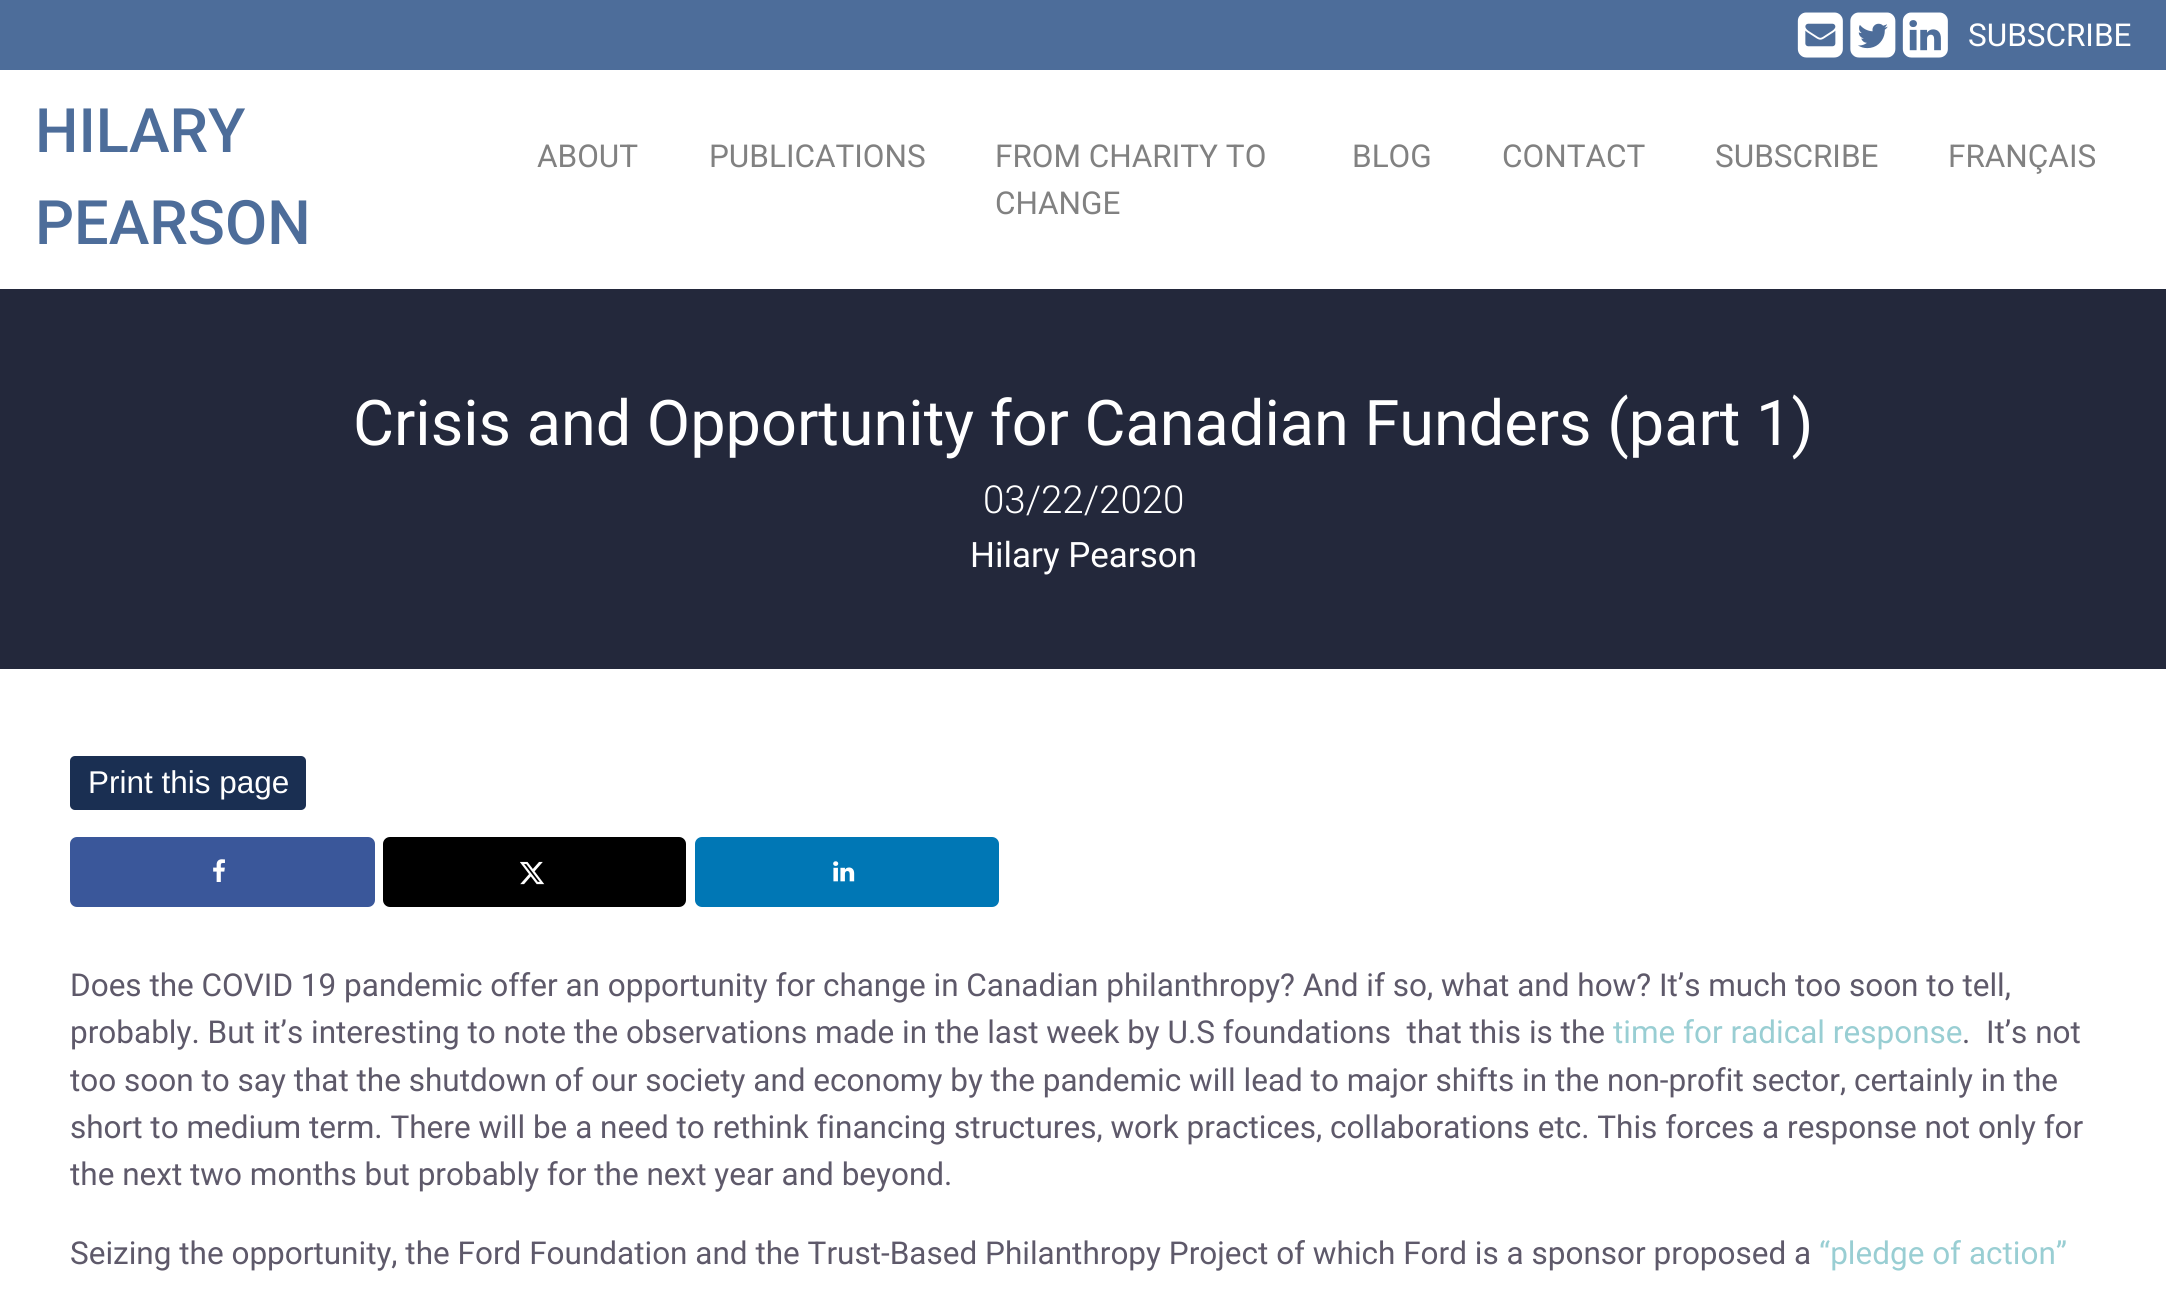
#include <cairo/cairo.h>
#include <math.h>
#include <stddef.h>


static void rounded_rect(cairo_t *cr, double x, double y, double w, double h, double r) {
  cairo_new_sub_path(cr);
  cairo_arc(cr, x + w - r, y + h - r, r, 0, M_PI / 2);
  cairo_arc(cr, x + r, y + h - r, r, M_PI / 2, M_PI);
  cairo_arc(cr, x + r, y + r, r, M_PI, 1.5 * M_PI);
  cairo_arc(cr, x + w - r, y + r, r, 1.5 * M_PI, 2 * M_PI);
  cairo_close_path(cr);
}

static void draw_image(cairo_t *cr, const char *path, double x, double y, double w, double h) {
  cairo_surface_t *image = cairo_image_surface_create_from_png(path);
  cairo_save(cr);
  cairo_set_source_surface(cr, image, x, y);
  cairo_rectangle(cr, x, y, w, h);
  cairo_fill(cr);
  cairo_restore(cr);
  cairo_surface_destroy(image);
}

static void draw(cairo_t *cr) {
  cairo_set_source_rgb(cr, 1, 1, 1);
  cairo_paint(cr);
  cairo_set_source_rgb(cr, 77 / 255.0, 109 / 255.0, 154 / 255.0);
  cairo_rectangle(cr, 0, 0, 2166, 70);
  cairo_fill(cr);
  draw_image(cr, "images/1.png", 1797, 12, 46, 46);
  draw_image(cr, "images/2.png", 1850, 12, 46, 46);
  draw_image(cr, "images/3.png", 1902, 12, 46, 46);
  cairo_set_source_rgb(cr, 35 / 255.0, 40 / 255.0, 59 / 255.0);
  cairo_rectangle(cr, 0, 289, 2166, 380);
  cairo_fill(cr);
  cairo_set_source_rgb(cr, 26 / 255.0, 47 / 255.0, 82 / 255.0);
  rounded_rect(cr, 70, 756, 236, 54, 5);
  cairo_fill(cr);
  cairo_set_source_rgb(cr, 58 / 255.0, 87 / 255.0, 154 / 255.0);
  rounded_rect(cr, 72, 839, 301, 66, 5);
  cairo_fill_preserve(cr);
  cairo_set_line_width(cr, 4);
  cairo_stroke(cr);
  draw_image(cr, "images/4.png", 213, 859, 12, 23);
  cairo_set_source_rgb(cr, 0, 0, 0);
  rounded_rect(cr, 385, 839, 299, 66, 5);
  cairo_fill_preserve(cr);
  cairo_stroke(cr);
  draw_image(cr, "images/5.png", 520, 861, 25, 24);
  cairo_set_source_rgb(cr, 0, 119 / 255.0, 181 / 255.0);
  rounded_rect(cr, 697, 839, 300, 66, 5);
  cairo_fill_preserve(cr);
  cairo_stroke(cr);
  draw_image(cr, "images/6.png", 833, 861, 22, 21);
  cairo_select_font_face(cr, "Roboto", CAIRO_FONT_SLANT_NORMAL, CAIRO_FONT_WEIGHT_NORMAL);
  cairo_set_font_size(cr, 31.5);
  cairo_set_source_rgb(cr, 1, 1, 1);
  cairo_move_to(cr, 1968, 46);
  cairo_show_text(cr, "SUBSCRIBE");
  cairo_select_font_face(cr, "Roboto Medium", CAIRO_FONT_SLANT_NORMAL, CAIRO_FONT_WEIGHT_NORMAL);
  cairo_set_font_size(cr, 61.25);
  cairo_set_source_rgb(cr, 77 / 255.0, 109 / 255.0, 154 / 255.0);
  cairo_move_to(cr, 35, 152);
  cairo_show_text(cr, "HILARY");
  cairo_move_to(cr, 35, 244);
  cairo_show_text(cr, "PEARSON");
  cairo_select_font_face(cr, "Roboto", CAIRO_FONT_SLANT_NORMAL, CAIRO_FONT_WEIGHT_NORMAL);
  cairo_set_font_size(cr, 31.5);
  cairo_set_source_rgb(cr, 129 / 255.0, 129 / 255.0, 129 / 255.0);
  cairo_move_to(cr, 537, 167);
  cairo_show_text(cr, "ABOUT");
  cairo_move_to(cr, 709, 167);
  cairo_show_text(cr, "PUBLICATIONS");
  cairo_move_to(cr, 995, 167);
  cairo_show_text(cr, "FROM CHARITY TO");
  cairo_move_to(cr, 995, 214);
  cairo_show_text(cr, "CHANGE");
  cairo_move_to(cr, 1352, 167);
  cairo_show_text(cr, "BLOG");
  cairo_move_to(cr, 1502, 167);
  cairo_show_text(cr, "CONTACT");
  cairo_move_to(cr, 1715, 167);
  cairo_show_text(cr, "SUBSCRIBE");
  cairo_move_to(cr, 1948, 167);
  cairo_show_text(cr, "FRANÇAIS");
  cairo_set_font_size(cr, 63);
  cairo_set_source_rgb(cr, 1, 1, 1);
  cairo_move_to(cr, 353, 445);
  cairo_show_text(cr, "Crisis and Opportunity for Canadian Funders (part 1)");
  cairo_select_font_face(cr, "Roboto Light", CAIRO_FONT_SLANT_NORMAL, CAIRO_FONT_WEIGHT_NORMAL);
  cairo_set_font_size(cr, 38.5);
  cairo_move_to(cr, 983, 513);
  cairo_show_text(cr, "03/22/2020");
  cairo_select_font_face(cr, "Roboto", CAIRO_FONT_SLANT_NORMAL, CAIRO_FONT_WEIGHT_NORMAL);
  cairo_set_font_size(cr, 35);
  cairo_move_to(cr, 970, 567);
  cairo_show_text(cr, "Hilary Pearson");
  cairo_select_font_face(cr, "Liberation Sans", CAIRO_FONT_SLANT_NORMAL, CAIRO_FONT_WEIGHT_NORMAL);
  cairo_set_font_size(cr, 31.5);
  cairo_move_to(cr, 88, 793);
  cairo_show_text(cr, "Print this page");
  cairo_select_font_face(cr, "Roboto", CAIRO_FONT_SLANT_NORMAL, CAIRO_FONT_WEIGHT_NORMAL);
  cairo_set_source_rgb(cr, 94 / 255.0, 89 / 255.0, 106 / 255.0);
  cairo_move_to(cr, 70, 996);
  cairo_show_text(cr, "Does the COVID 19 pandemic offer an opportunity for change in Canadian philanthropy? And if so, what and how? It’s much too soon to tell,");
  cairo_move_to(cr, 70, 1043);
  cairo_show_text(cr, "probably. But it’s interesting to note the observations made in the last week by U.S foundations  that this is the");
  cairo_set_source_rgb(cr, 153 / 255.0, 206 / 255.0, 211 / 255.0);
  cairo_move_to(cr, 1613, 1043);
  cairo_show_text(cr, "time for radical response");
  cairo_set_source_rgb(cr, 94 / 255.0, 89 / 255.0, 106 / 255.0);
  cairo_move_to(cr, 1962, 1043);
  cairo_show_text(cr, ".  It’s not");
  cairo_move_to(cr, 70, 1091);
  cairo_show_text(cr, "too soon to say that the shutdown of our society and economy by the pandemic will lead to major shifts in the non-profit sector, certainly in the");
  cairo_move_to(cr, 70, 1138);
  cairo_show_text(cr, "short to medium term. There will be a need to rethink financing structures, work practices, collaborations etc. This forces a response not only for");
  cairo_move_to(cr, 70, 1185);
  cairo_show_text(cr, "the next two months but probably for the next year and beyond.");
  cairo_move_to(cr, 70, 1264);
  cairo_show_text(cr, "Seizing the opportunity, the Ford Foundation and the Trust-Based Philanthropy Project of which Ford is a sponsor proposed a");
  cairo_set_source_rgb(cr, 153 / 255.0, 206 / 255.0, 211 / 255.0);
  cairo_move_to(cr, 1819, 1264);
  cairo_show_text(cr, "“pledge of action”");
}

int main(void) {
  cairo_surface_t *surface = cairo_image_surface_create(CAIRO_FORMAT_RGB24, 2166, 1295);
  cairo_t *cr = cairo_create(surface);
  cairo_font_options_t *options = cairo_font_options_create();
  cairo_font_options_set_hint_metrics(options, CAIRO_HINT_METRICS_OFF);
  cairo_font_options_set_hint_style(options, CAIRO_HINT_STYLE_NONE);
  cairo_set_font_options(cr, options);
  cairo_set_miter_limit(cr, 4);
  draw(cr);
  cairo_surface_write_to_png(surface, "out.png");
  cairo_font_options_destroy(options);
  cairo_destroy(cr);
  cairo_surface_destroy(surface);
  return 0;
}
